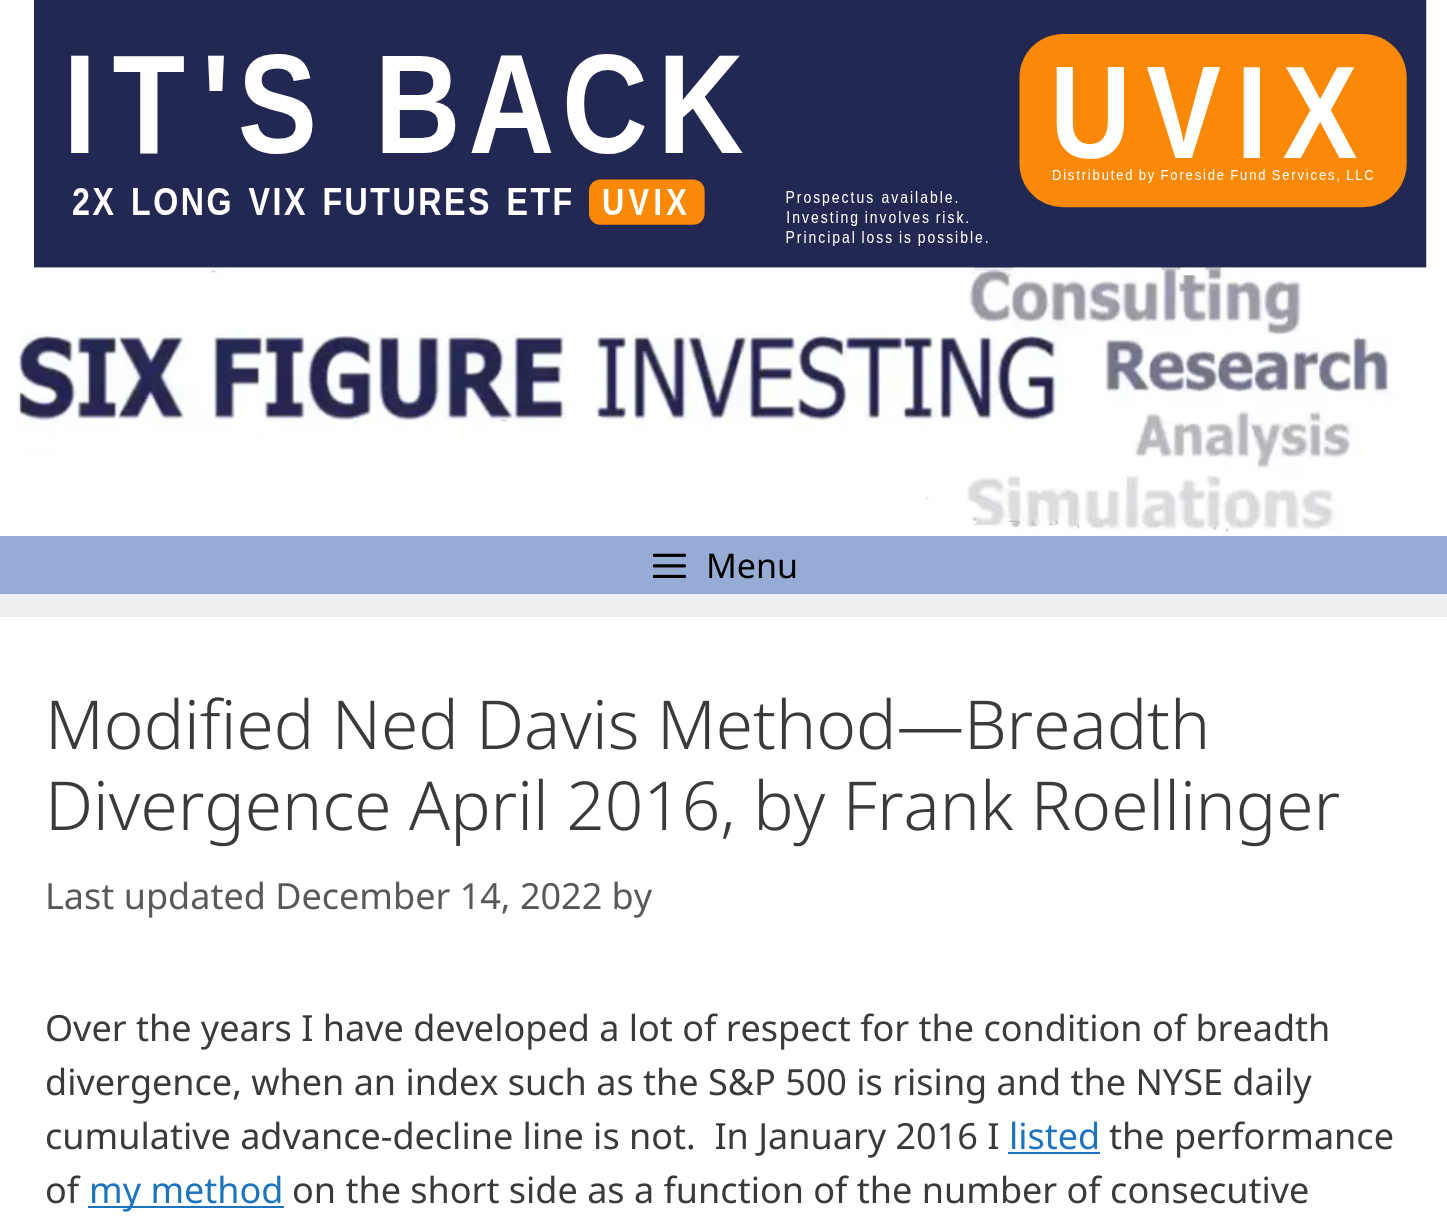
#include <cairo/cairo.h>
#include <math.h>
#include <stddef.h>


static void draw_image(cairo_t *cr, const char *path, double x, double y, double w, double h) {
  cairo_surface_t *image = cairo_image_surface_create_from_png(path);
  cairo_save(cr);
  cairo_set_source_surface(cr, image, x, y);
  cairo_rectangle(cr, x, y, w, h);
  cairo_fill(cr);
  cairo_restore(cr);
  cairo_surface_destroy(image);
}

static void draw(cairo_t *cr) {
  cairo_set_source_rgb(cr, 239 / 255.0, 239 / 255.0, 239 / 255.0);
  cairo_paint(cr);
  cairo_set_source_rgb(cr, 1, 1, 1);
  cairo_rectangle(cr, 0, 0, 1447, 536);
  cairo_fill(cr);
  draw_image(cr, "images/1.png", 34, 0, 1393, 268);
  draw_image(cr, "images/2.png", 17, 267, 1410, 269);
  cairo_set_source_rgb(cr, 151 / 255.0, 172 / 255.0, 213 / 255.0);
  cairo_rectangle(cr, 0, 536, 1447, 58);
  cairo_fill(cr);
  draw_image(cr, "images/3.png", 653, 553, 33, 25);
  cairo_set_source_rgb(cr, 1, 1, 1);
  cairo_rectangle(cr, 0, 617, 1447, 611);
  cairo_fill(cr);
  cairo_set_source_rgb(cr, 30 / 255.0, 115 / 255.0, 190 / 255.0);
  cairo_rectangle(cr, 1008, 1152, 92, 2);
  cairo_fill(cr);
  cairo_rectangle(cr, 88, 1206, 196, 2);
  cairo_fill(cr);
  cairo_select_font_face(cr, "Noto Sans", CAIRO_FONT_SLANT_NORMAL, CAIRO_FONT_WEIGHT_NORMAL);
  cairo_set_font_size(cr, 34);
  cairo_set_source_rgb(cr, 0, 0, 0);
  cairo_move_to(cr, 706, 578);
  cairo_show_text(cr, "Menu");
  cairo_select_font_face(cr, "Noto Sans Light", CAIRO_FONT_SLANT_NORMAL, CAIRO_FONT_WEIGHT_NORMAL);
  cairo_set_font_size(cr, 67.5);
  cairo_set_source_rgb(cr, 58 / 255.0, 58 / 255.0, 58 / 255.0);
  cairo_move_to(cr, 45, 749);
  cairo_show_text(cr, "Modified Ned Davis Method—Breadth");
  cairo_move_to(cr, 45, 830);
  cairo_show_text(cr, "Divergence April 2016, by Frank Roellinger");
  cairo_select_font_face(cr, "Noto Sans", CAIRO_FONT_SLANT_NORMAL, CAIRO_FONT_WEIGHT_NORMAL);
  cairo_set_font_size(cr, 36);
  cairo_set_source_rgb(cr, 89 / 255.0, 89 / 255.0, 89 / 255.0);
  cairo_move_to(cr, 45, 909);
  cairo_show_text(cr, "Last updated December 14, 2022 by");
  cairo_set_source_rgb(cr, 58 / 255.0, 58 / 255.0, 58 / 255.0);
  cairo_move_to(cr, 45, 1041);
  cairo_show_text(cr, "Over the years I have developed a lot of respect for the condition of breadth");
  cairo_move_to(cr, 45, 1095);
  cairo_show_text(cr, "divergence, when an index such as the S&P 500 is rising and the NYSE daily");
  cairo_move_to(cr, 45, 1149);
  cairo_show_text(cr, "cumulative advance-decline line is not.  In January 2016 I");
  cairo_set_source_rgb(cr, 30 / 255.0, 115 / 255.0, 190 / 255.0);
  cairo_move_to(cr, 1009, 1149);
  cairo_show_text(cr, "listed");
  cairo_set_source_rgb(cr, 58 / 255.0, 58 / 255.0, 58 / 255.0);
  cairo_move_to(cr, 1109, 1149);
  cairo_show_text(cr, "the performance");
  cairo_move_to(cr, 45, 1203);
  cairo_show_text(cr, "of");
  cairo_set_source_rgb(cr, 30 / 255.0, 115 / 255.0, 190 / 255.0);
  cairo_move_to(cr, 89, 1203);
  cairo_show_text(cr, "my method");
  cairo_set_source_rgb(cr, 58 / 255.0, 58 / 255.0, 58 / 255.0);
  cairo_move_to(cr, 292, 1203);
  cairo_show_text(cr, "on the short side as a function of the number of consecutive");
}

int main(void) {
  cairo_surface_t *surface = cairo_image_surface_create(CAIRO_FORMAT_RGB24, 1447, 1228);
  cairo_t *cr = cairo_create(surface);
  cairo_font_options_t *options = cairo_font_options_create();
  cairo_font_options_set_hint_metrics(options, CAIRO_HINT_METRICS_OFF);
  cairo_font_options_set_hint_style(options, CAIRO_HINT_STYLE_NONE);
  cairo_set_font_options(cr, options);
  cairo_set_miter_limit(cr, 4);
  draw(cr);
  cairo_surface_write_to_png(surface, "out.png");
  cairo_font_options_destroy(options);
  cairo_destroy(cr);
  cairo_surface_destroy(surface);
  return 0;
}
